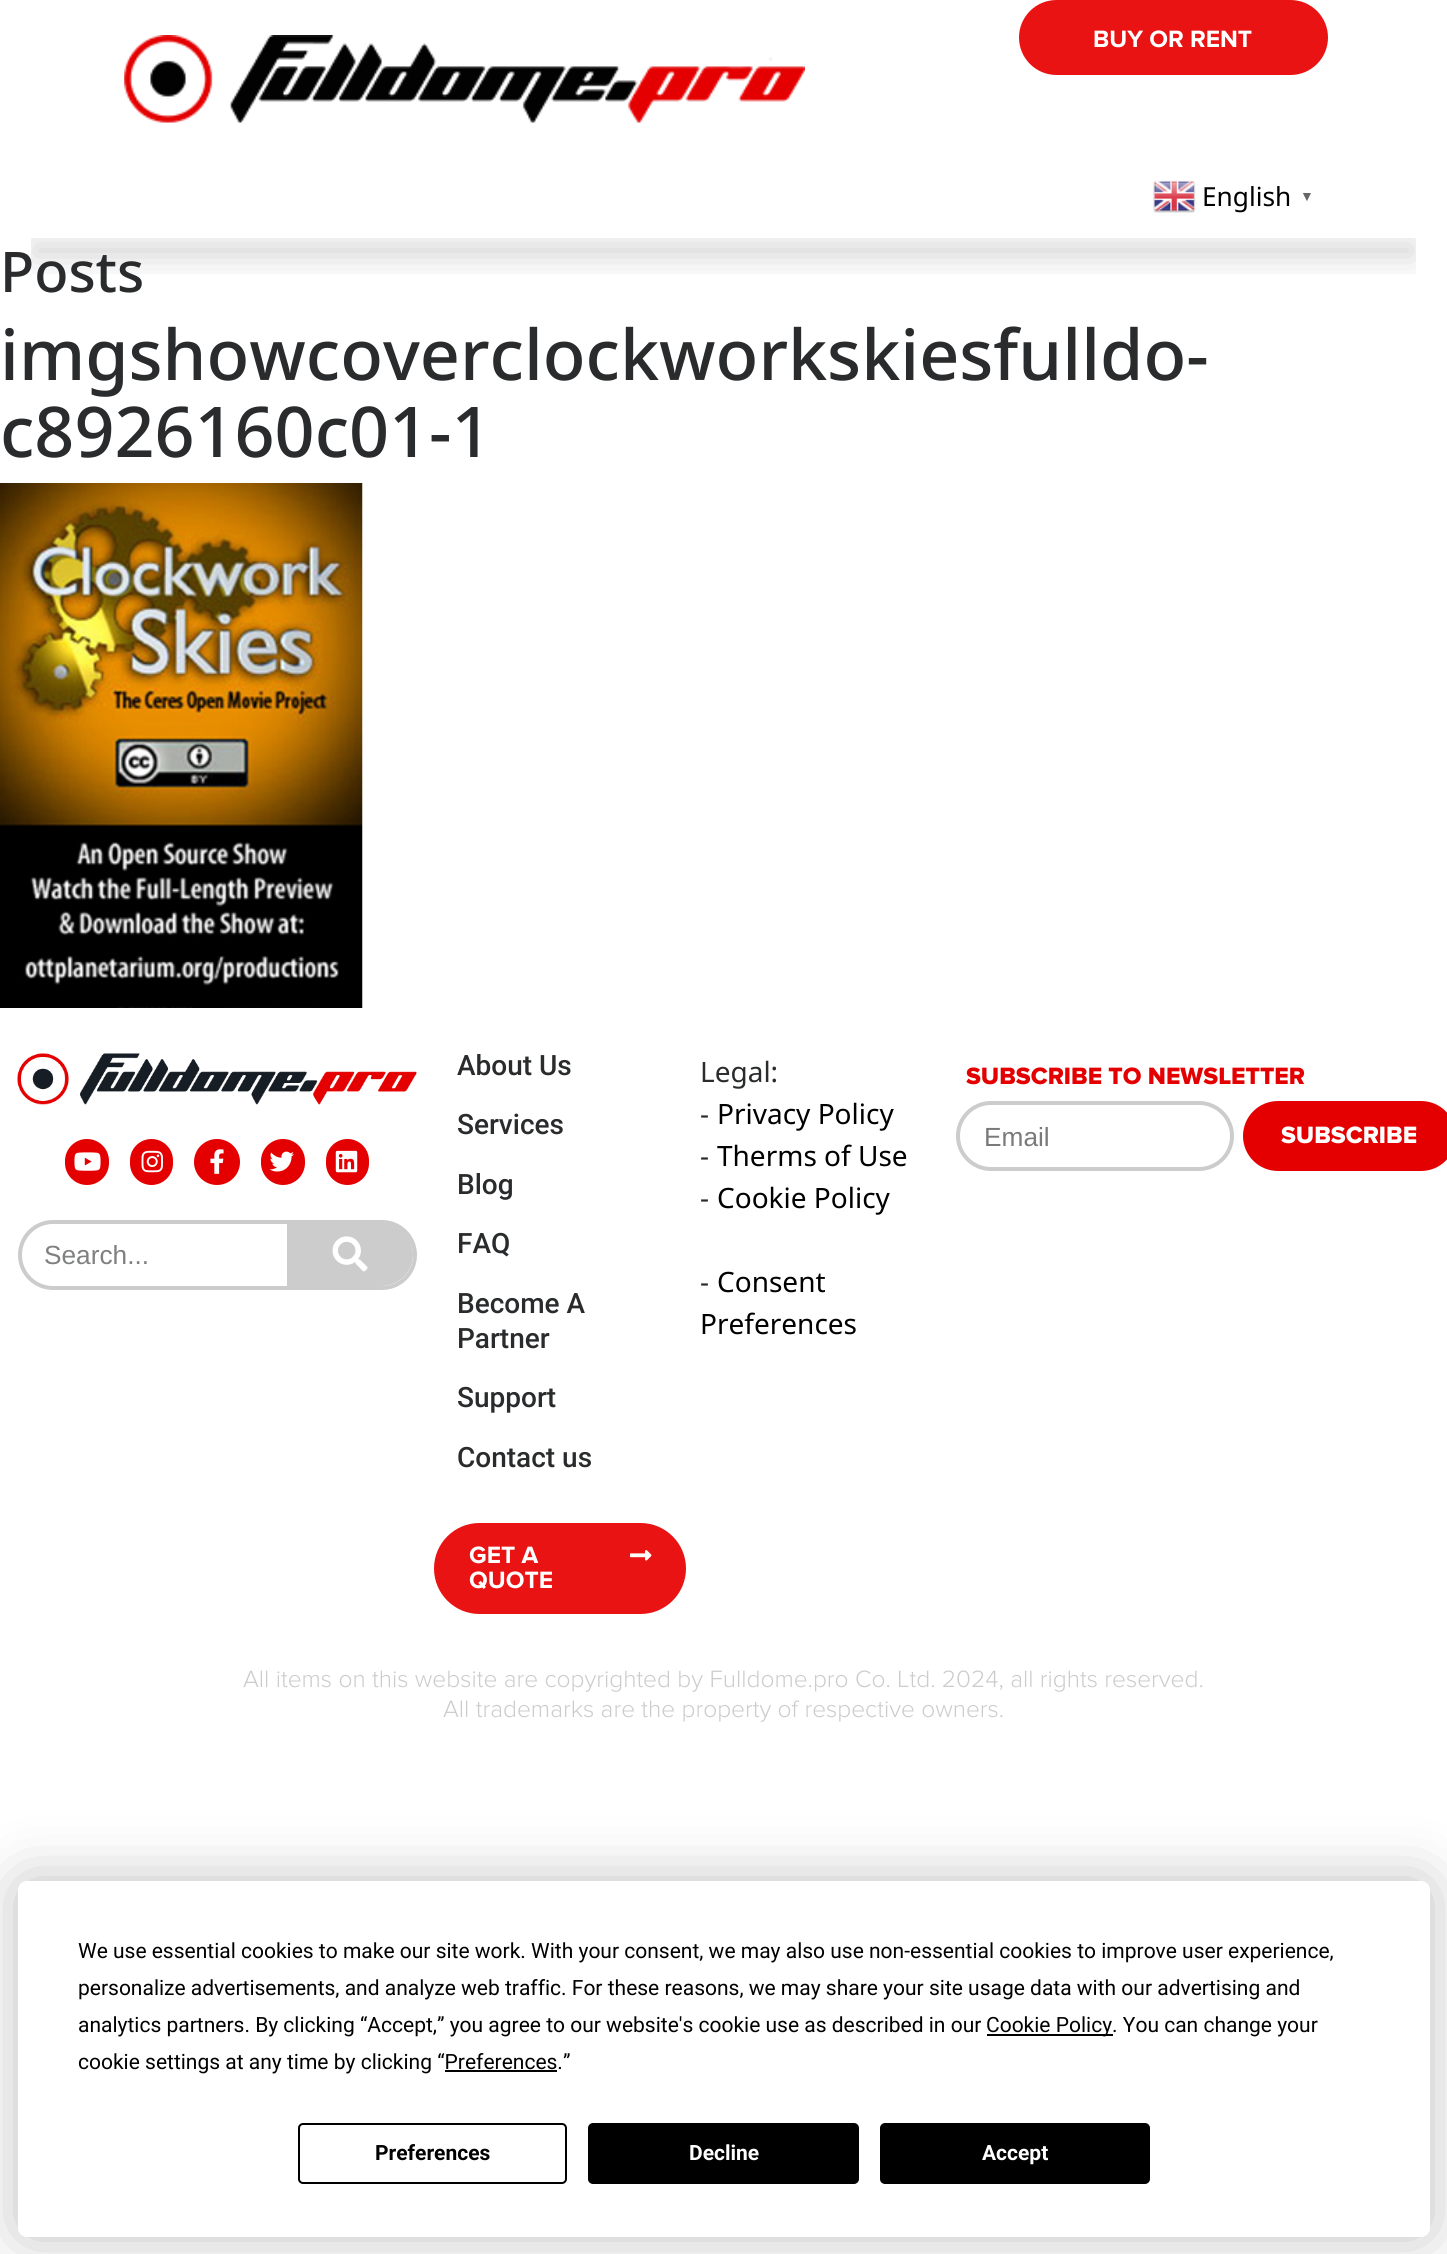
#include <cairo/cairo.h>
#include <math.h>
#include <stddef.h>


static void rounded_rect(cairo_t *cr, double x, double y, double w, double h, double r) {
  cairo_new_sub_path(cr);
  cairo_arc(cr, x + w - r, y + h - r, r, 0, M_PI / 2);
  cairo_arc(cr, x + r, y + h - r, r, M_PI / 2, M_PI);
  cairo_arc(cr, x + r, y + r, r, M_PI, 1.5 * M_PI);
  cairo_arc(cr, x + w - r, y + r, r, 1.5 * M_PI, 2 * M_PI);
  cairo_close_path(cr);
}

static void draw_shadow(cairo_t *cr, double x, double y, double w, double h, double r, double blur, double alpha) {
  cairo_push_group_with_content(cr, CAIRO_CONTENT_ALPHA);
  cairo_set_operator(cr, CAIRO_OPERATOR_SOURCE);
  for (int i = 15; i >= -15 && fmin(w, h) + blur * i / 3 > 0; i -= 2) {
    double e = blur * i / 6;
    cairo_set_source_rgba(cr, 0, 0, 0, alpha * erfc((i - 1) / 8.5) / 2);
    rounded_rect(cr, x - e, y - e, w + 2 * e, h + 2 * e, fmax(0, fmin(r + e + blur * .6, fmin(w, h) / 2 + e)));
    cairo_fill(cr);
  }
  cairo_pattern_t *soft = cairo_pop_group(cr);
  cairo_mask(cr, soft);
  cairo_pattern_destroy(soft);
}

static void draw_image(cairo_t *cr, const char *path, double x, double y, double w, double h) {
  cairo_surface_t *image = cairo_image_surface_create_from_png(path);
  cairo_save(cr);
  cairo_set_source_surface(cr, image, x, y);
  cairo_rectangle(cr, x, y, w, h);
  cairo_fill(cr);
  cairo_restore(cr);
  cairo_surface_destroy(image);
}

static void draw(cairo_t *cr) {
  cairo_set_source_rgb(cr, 1, 1, 1);
  cairo_paint(cr);
  draw_image(cr, "images/1.png", 124, 35, 681, 88);
  cairo_set_source_rgb(cr, 234 / 255.0, 19 / 255.0, 19 / 255.0);
  rounded_rect(cr, 1021, 2, 305, 71, 35.5);
  cairo_fill_preserve(cr);
  cairo_set_line_width(cr, 4);
  cairo_stroke(cr);
  cairo_save(cr);
  cairo_rectangle(cr, 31, 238, 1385, 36);
  cairo_clip(cr);
  cairo_set_source_rgb(cr, 33 / 255.0, 35 / 255.0, 39 / 255.0);
  draw_shadow(cr, 35, 245, 1377, 11, 0, 17.5, 0.2);
  cairo_restore(cr);
  draw_image(cr, "images/2.png", 1153, 180, 43, 33);
  draw_image(cr, "images/3.png", 0, 483, 363, 525);
  draw_image(cr, "images/4.png", 17, 1053, 400, 52);
  cairo_set_source_rgb(cr, 228 / 255.0, 0, 0);
  rounded_rect(cr, 65, 1139, 44, 46, 22);
  cairo_fill(cr);
  draw_image(cr, "images/5.png", 74, 1152, 27, 19);
  rounded_rect(cr, 130, 1139, 43, 46, 21.5);
  cairo_fill(cr);
  draw_image(cr, "images/6.png", 141, 1150, 22, 23);
  cairo_arc(cr, 217, 1162, 23, 0, 2 * M_PI);
  cairo_fill(cr);
  draw_image(cr, "images/7.png", 210, 1149, 14, 25);
  rounded_rect(cr, 261, 1139, 44, 46, 22);
  cairo_fill(cr);
  draw_image(cr, "images/8.png", 269, 1151, 25, 21);
  rounded_rect(cr, 326, 1139, 43, 46, 21.5);
  cairo_fill(cr);
  draw_image(cr, "images/9.png", 335, 1150, 23, 23);
  rounded_rect(cr, 20, 1222, 395, 66, 33);
  cairo_set_source_rgb(cr, 204 / 255.0, 204 / 255.0, 204 / 255.0);
  cairo_stroke(cr);
  cairo_new_path(cr);
  cairo_move_to(cr, 287, 1223);
  cairo_line_to(cr, 381.5, 1223);
  cairo_curve_to(cr, 399, 1223, 413, 1237, 413, 1254.5);
  cairo_curve_to(cr, 413, 1272, 399, 1286, 381.5, 1286);
  cairo_line_to(cr, 287, 1286);
  cairo_close_path(cr);
  cairo_fill(cr);
  draw_image(cr, "images/10.png", 332, 1236, 36, 36);
  cairo_set_source_rgb(cr, 234 / 255.0, 19 / 255.0, 19 / 255.0);
  rounded_rect(cr, 434, 1523, 252, 91, 45.5);
  cairo_fill(cr);
  draw_image(cr, "images/11.png", 630, 1550, 22, 11);
  rounded_rect(cr, 958, 1103, 274, 66, 33);
  cairo_set_source_rgb(cr, 204 / 255.0, 204 / 255.0, 204 / 255.0);
  cairo_stroke(cr);
  cairo_set_source_rgb(cr, 228 / 255.0, 0, 0);
  rounded_rect(cr, 1245, 1103, 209, 66, 33);
  cairo_fill_preserve(cr);
  cairo_stroke(cr);
  cairo_set_source_rgb(cr, 0, 0, 0);
  draw_shadow(cr, 18, 1881, 1412, 356, 9, 30.5, 0.25);
  cairo_set_source_rgb(cr, 1, 1, 1);
  rounded_rect(cr, 18, 1881, 1412, 356, 9);
  cairo_fill(cr);
  cairo_set_source_rgb(cr, 0, 0, 0);
  cairo_rectangle(cr, 987, 2034, 126, 2);
  cairo_fill(cr);
  cairo_rectangle(cr, 445, 2070, 112, 2);
  cairo_fill(cr);
  rounded_rect(cr, 299, 2124, 267, 59, 4);
  cairo_set_line_width(cr, 2);
  cairo_stroke(cr);
  rounded_rect(cr, 589, 2124, 269, 59, 4);
  cairo_fill_preserve(cr);
  cairo_stroke(cr);
  rounded_rect(cr, 881, 2124, 268, 59, 4);
  cairo_fill_preserve(cr);
  cairo_stroke(cr);
  cairo_select_font_face(cr, "Proxima Nova", CAIRO_FONT_SLANT_NORMAL, CAIRO_FONT_WEIGHT_BOLD);
  cairo_set_font_size(cr, 24.5);
  cairo_set_source_rgb(cr, 1, 1, 1);
  cairo_move_to(cr, 1093, 47);
  cairo_show_text(cr, "BUY OR RENT");
  cairo_select_font_face(cr, "Noto Sans", CAIRO_FONT_SLANT_NORMAL, CAIRO_FONT_WEIGHT_NORMAL);
  cairo_set_font_size(cr, 26.25);
  cairo_set_source_rgb(cr, 0, 0, 0);
  cairo_move_to(cr, 1202, 206);
  cairo_show_text(cr, "English");
  cairo_select_font_face(cr, "Liberation Sans", CAIRO_FONT_SLANT_NORMAL, CAIRO_FONT_WEIGHT_BOLD);
  cairo_set_font_size(cr, 14);
  cairo_set_source_rgb(cr, 102 / 255.0, 102 / 255.0, 102 / 255.0);
  cairo_move_to(cr, 1300, 201);
  cairo_show_text(cr, "▼");
  cairo_select_font_face(cr, "Noto Sans Medium", CAIRO_FONT_SLANT_NORMAL, CAIRO_FONT_WEIGHT_NORMAL);
  cairo_set_font_size(cr, 56);
  cairo_set_source_rgb(cr, 41 / 255.0, 43 / 255.0, 44 / 255.0);
  cairo_move_to(cr, 0, 292);
  cairo_show_text(cr, "Posts");
  cairo_set_font_size(cr, 70);
  cairo_move_to(cr, 0, 380);
  cairo_show_text(cr, "imgshowcoverclockworkskiesfulldo-");
  cairo_move_to(cr, 0, 457);
  cairo_show_text(cr, "c8926160c01-1");
  cairo_select_font_face(cr, "Liberation Sans", CAIRO_FONT_SLANT_NORMAL, CAIRO_FONT_WEIGHT_NORMAL);
  cairo_set_font_size(cr, 26.25);
  cairo_set_source_rgb(cr, 127 / 255.0, 128 / 255.0, 128 / 255.0);
  cairo_move_to(cr, 44, 1264);
  cairo_show_text(cr, "Search...");
  cairo_select_font_face(cr, "Roboto Medium", CAIRO_FONT_SLANT_NORMAL, CAIRO_FONT_WEIGHT_NORMAL);
  cairo_set_font_size(cr, 28);
  cairo_set_source_rgb(cr, 41 / 255.0, 43 / 255.0, 44 / 255.0);
  cairo_move_to(cr, 457, 1075);
  cairo_show_text(cr, "About Us");
  cairo_move_to(cr, 457, 1134);
  cairo_show_text(cr, "Services");
  cairo_move_to(cr, 457, 1194);
  cairo_show_text(cr, "Blog");
  cairo_move_to(cr, 457, 1253);
  cairo_show_text(cr, "FAQ");
  cairo_move_to(cr, 457, 1313);
  cairo_show_text(cr, "Become A");
  cairo_move_to(cr, 457, 1348);
  cairo_show_text(cr, "Partner");
  cairo_move_to(cr, 457, 1407);
  cairo_show_text(cr, "Support");
  cairo_move_to(cr, 457, 1467);
  cairo_show_text(cr, "Contact us");
  cairo_select_font_face(cr, "Proxima Nova", CAIRO_FONT_SLANT_NORMAL, CAIRO_FONT_WEIGHT_BOLD);
  cairo_set_font_size(cr, 24.5);
  cairo_set_source_rgb(cr, 1, 1, 1);
  cairo_move_to(cr, 469, 1563);
  cairo_show_text(cr, "GET A");
  cairo_move_to(cr, 469, 1588);
  cairo_show_text(cr, "QUOTE");
  cairo_select_font_face(cr, "Noto Sans", CAIRO_FONT_SLANT_NORMAL, CAIRO_FONT_WEIGHT_NORMAL);
  cairo_set_font_size(cr, 28);
  cairo_set_source_rgb(cr, 41 / 255.0, 43 / 255.0, 44 / 255.0);
  cairo_move_to(cr, 700, 1082);
  cairo_show_text(cr, "Legal:");
  cairo_move_to(cr, 700, 1124);
  cairo_show_text(cr, "-");
  cairo_set_source_rgb(cr, 0, 0, 0);
  cairo_move_to(cr, 717, 1124);
  cairo_show_text(cr, "Privacy Policy");
  cairo_set_source_rgb(cr, 41 / 255.0, 43 / 255.0, 44 / 255.0);
  cairo_move_to(cr, 700, 1166);
  cairo_show_text(cr, "-");
  cairo_set_source_rgb(cr, 0, 0, 0);
  cairo_move_to(cr, 717, 1166);
  cairo_show_text(cr, "Therms of Use");
  cairo_set_source_rgb(cr, 41 / 255.0, 43 / 255.0, 44 / 255.0);
  cairo_move_to(cr, 700, 1208);
  cairo_show_text(cr, "-");
  cairo_set_source_rgb(cr, 0, 0, 0);
  cairo_move_to(cr, 717, 1208);
  cairo_show_text(cr, "Cookie Policy");
  cairo_set_source_rgb(cr, 41 / 255.0, 43 / 255.0, 44 / 255.0);
  cairo_move_to(cr, 700, 1292);
  cairo_show_text(cr, "-");
  cairo_set_source_rgb(cr, 0, 0, 0);
  cairo_move_to(cr, 717, 1292);
  cairo_show_text(cr, "Consent");
  cairo_move_to(cr, 700, 1334);
  cairo_show_text(cr, "Preferences");
  cairo_select_font_face(cr, "Proxima Nova ExtraBold", CAIRO_FONT_SLANT_NORMAL, CAIRO_FONT_WEIGHT_NORMAL);
  cairo_set_font_size(cr, 24.5);
  cairo_set_source_rgb(cr, 228 / 255.0, 0, 0);
  cairo_move_to(cr, 966, 1084);
  cairo_show_text(cr, "SUBSCRIBE TO NEWSLETTER");
  cairo_select_font_face(cr, "Liberation Sans", CAIRO_FONT_SLANT_NORMAL, CAIRO_FONT_WEIGHT_NORMAL);
  cairo_set_font_size(cr, 26.25);
  cairo_set_source_rgb(cr, 121 / 255.0, 122 / 255.0, 124 / 255.0);
  cairo_move_to(cr, 984, 1146);
  cairo_show_text(cr, "Email");
  cairo_select_font_face(cr, "Proxima Nova ExtraBold", CAIRO_FONT_SLANT_NORMAL, CAIRO_FONT_WEIGHT_NORMAL);
  cairo_set_font_size(cr, 24.5);
  cairo_set_source_rgb(cr, 1, 1, 1);
  cairo_move_to(cr, 1281, 1143);
  cairo_show_text(cr, "SUBSCRIBE");
  cairo_select_font_face(cr, "Proxima Nova Light", CAIRO_FONT_SLANT_NORMAL, CAIRO_FONT_WEIGHT_NORMAL);
  cairo_set_source_rgb(cr, 204 / 255.0, 204 / 255.0, 204 / 255.0);
  cairo_move_to(cr, 243, 1687);
  cairo_show_text(cr, "All items on this website are copyrighted by Fulldome.pro Co. Ltd. 2024, all rights reserved.");
  cairo_move_to(cr, 443, 1717);
  cairo_show_text(cr, "All trademarks are the property of respective owners.");
  cairo_select_font_face(cr, "Roboto", CAIRO_FONT_SLANT_NORMAL, CAIRO_FONT_WEIGHT_NORMAL);
  cairo_set_font_size(cr, 21);
  cairo_set_source_rgb(cr, 0, 0, 0);
  cairo_move_to(cr, 78, 1958);
  cairo_show_text(cr, "We use essential cookies to make our site work. With your consent, we may also use non-essential cookies to improve user experience,");
  cairo_move_to(cr, 78, 1995);
  cairo_show_text(cr, "personalize advertisements, and analyze web traffic. For these reasons, we may share your site usage data with our advertising and");
  cairo_move_to(cr, 78, 2032);
  cairo_show_text(cr, "analytics partners. By clicking “Accept,” you agree to our website's cookie use as described in our");
  cairo_move_to(cr, 986, 2032);
  cairo_show_text(cr, "Cookie Policy. You can change your");
  cairo_move_to(cr, 78, 2069);
  cairo_show_text(cr, "cookie settings at any time by clicking “Preferences.”");
  cairo_select_font_face(cr, "Roboto", CAIRO_FONT_SLANT_NORMAL, CAIRO_FONT_WEIGHT_BOLD);
  cairo_move_to(cr, 375, 2160);
  cairo_show_text(cr, "Preferences");
  cairo_set_source_rgb(cr, 1, 1, 1);
  cairo_move_to(cr, 689, 2160);
  cairo_show_text(cr, "Decline");
  cairo_move_to(cr, 982, 2160);
  cairo_show_text(cr, "Accept");
}

int main(void) {
  cairo_surface_t *surface = cairo_image_surface_create(CAIRO_FORMAT_RGB24, 1447, 2254);
  cairo_t *cr = cairo_create(surface);
  cairo_font_options_t *options = cairo_font_options_create();
  cairo_font_options_set_hint_metrics(options, CAIRO_HINT_METRICS_OFF);
  cairo_font_options_set_hint_style(options, CAIRO_HINT_STYLE_NONE);
  cairo_set_font_options(cr, options);
  cairo_set_miter_limit(cr, 4);
  draw(cr);
  cairo_surface_write_to_png(surface, "out.png");
  cairo_font_options_destroy(options);
  cairo_destroy(cr);
  cairo_surface_destroy(surface);
  return 0;
}
